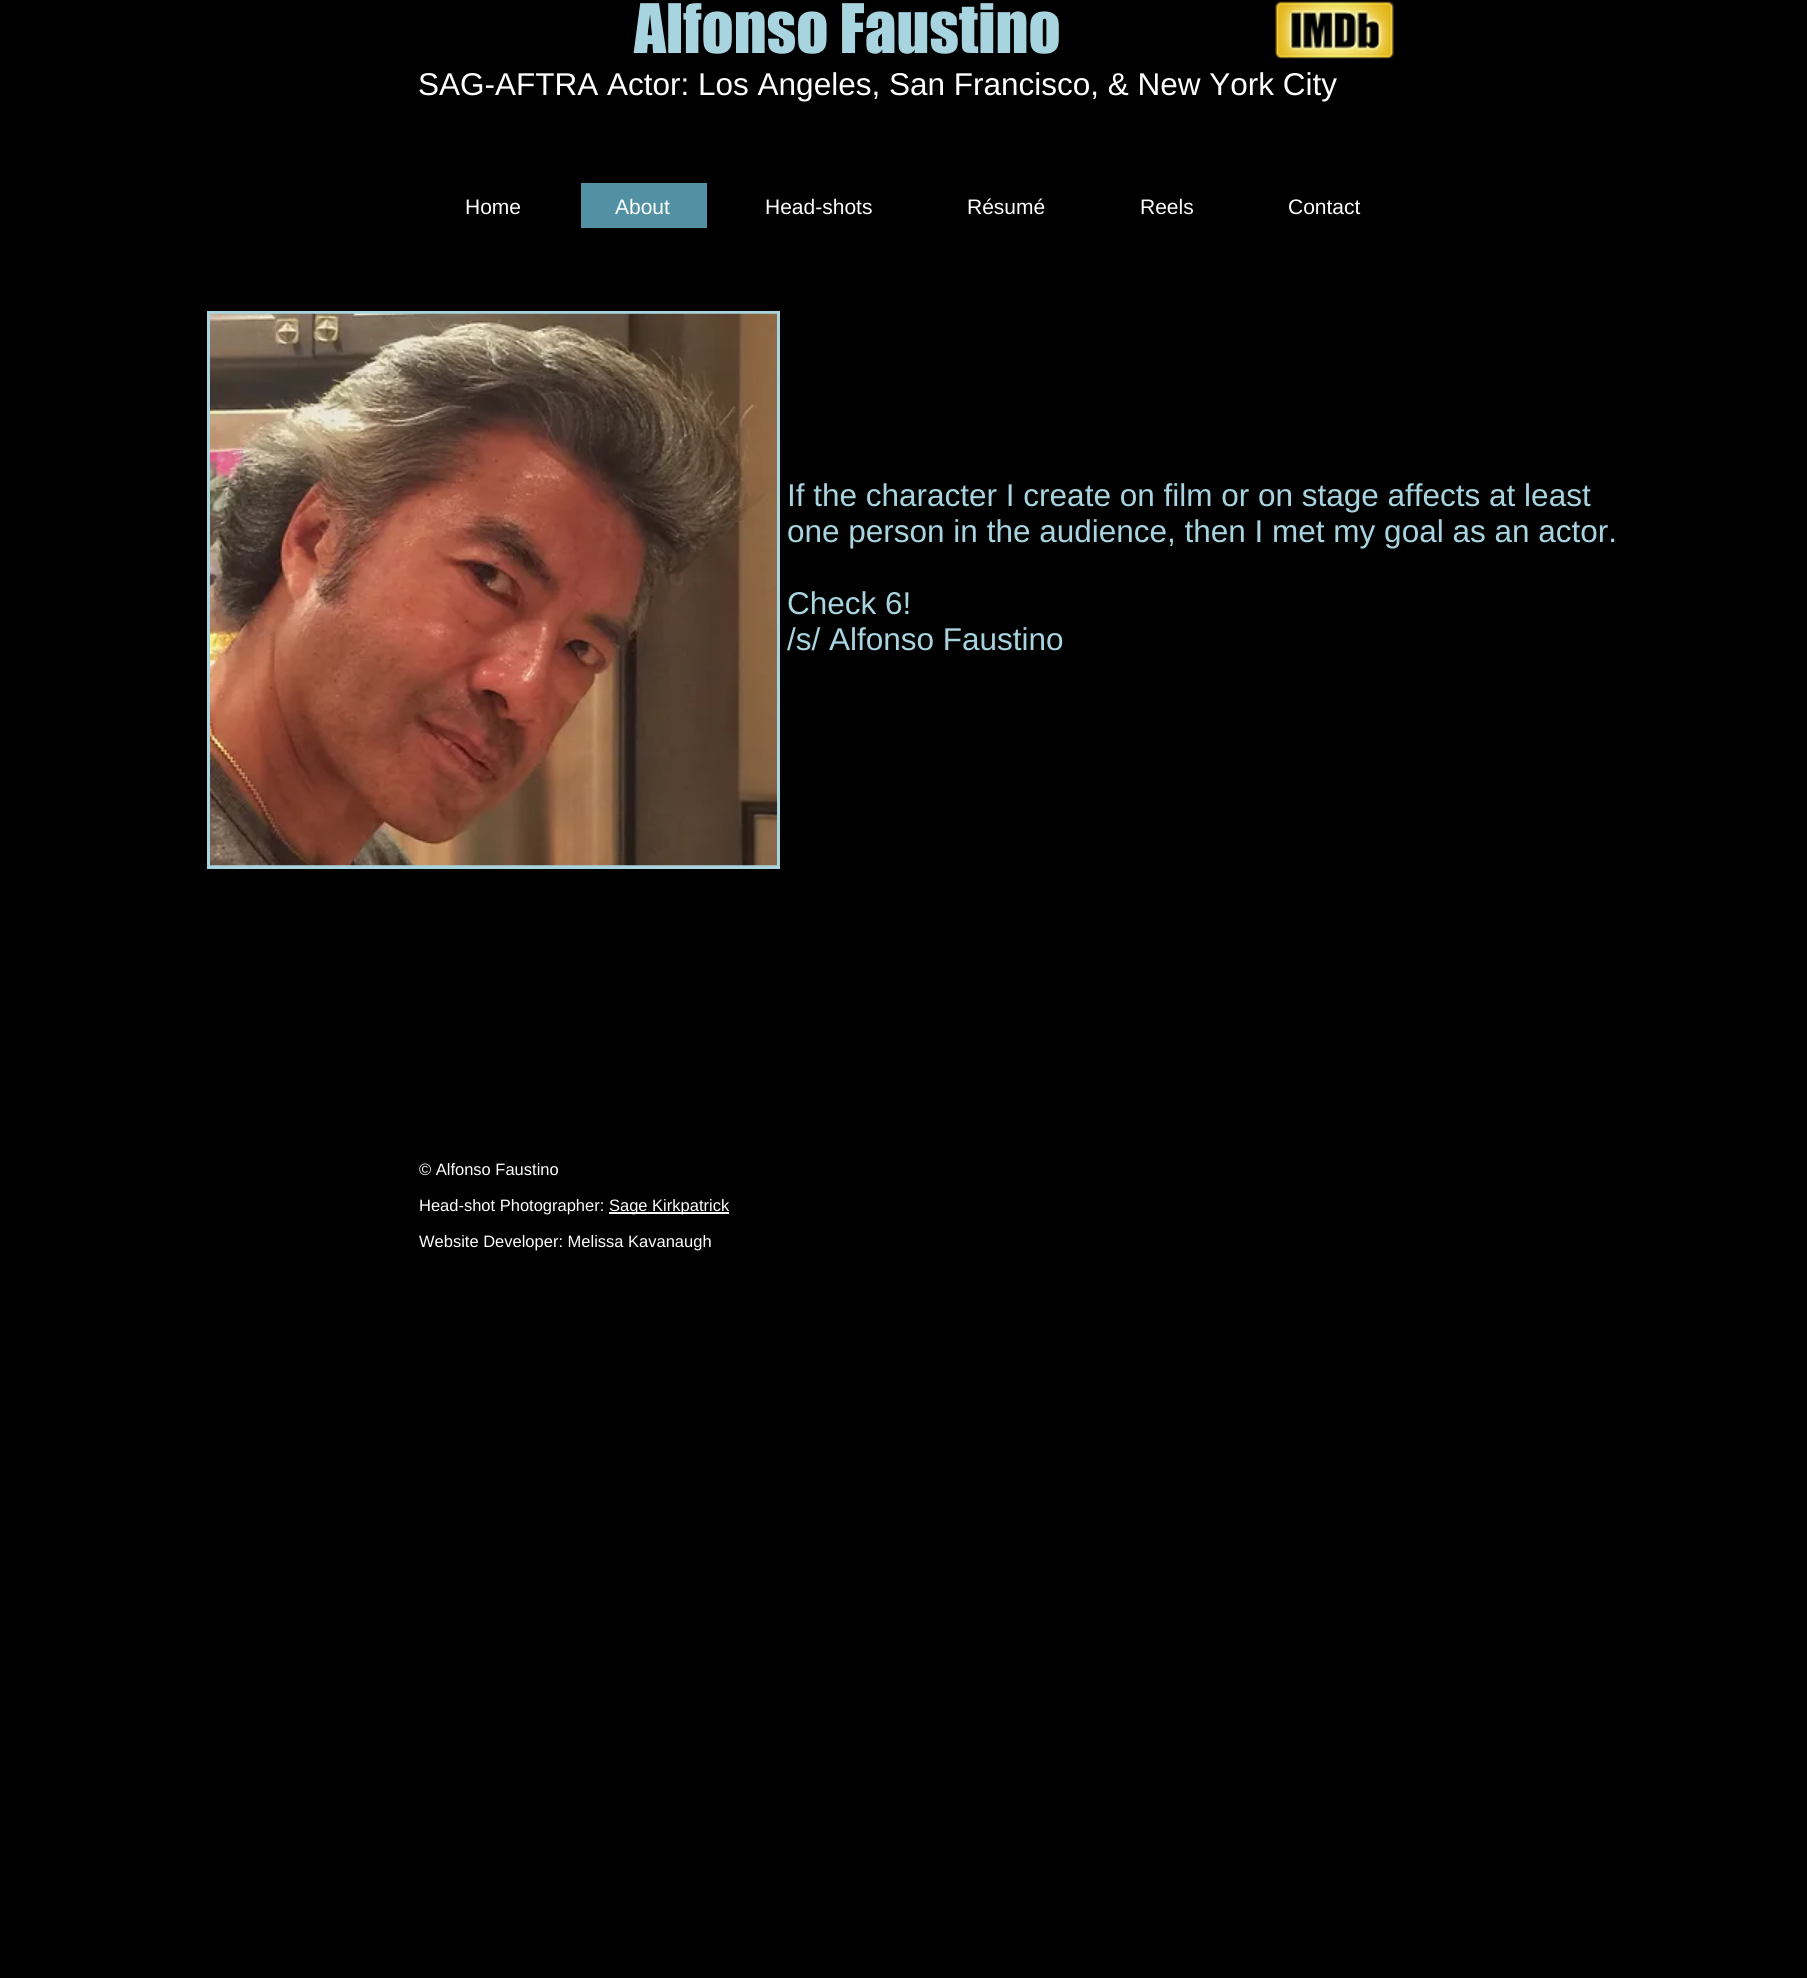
#include <cairo/cairo.h>
#include <math.h>
#include <stddef.h>


static void draw_image(cairo_t *cr, const char *path, double x, double y, double w, double h) {
  cairo_surface_t *image = cairo_image_surface_create_from_png(path);
  cairo_save(cr);
  cairo_set_source_surface(cr, image, x, y);
  cairo_rectangle(cr, x, y, w, h);
  cairo_fill(cr);
  cairo_restore(cr);
  cairo_surface_destroy(image);
}

static void draw(cairo_t *cr) {
  cairo_set_source_rgb(cr, 0, 0, 0);
  cairo_paint(cr);
  draw_image(cr, "images/1.png", 1275, 1, 120, 58);
  cairo_set_source_rgb(cr, 81 / 255.0, 145 / 255.0, 163 / 255.0);
  cairo_rectangle(cr, 581, 183, 126, 45);
  cairo_fill(cr);
  cairo_set_source_rgb(cr, 168 / 255.0, 212 / 255.0, 224 / 255.0);
  cairo_rectangle(cr, 207, 311, 573, 558);
  cairo_fill(cr);
  draw_image(cr, "images/2.png", 210, 313, 567, 553);
  cairo_set_source_rgb(cr, 1, 1, 1);
  cairo_rectangle(cr, 609, 1212, 120, 2);
  cairo_fill(cr);
  cairo_select_font_face(cr, "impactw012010", CAIRO_FONT_SLANT_NORMAL, CAIRO_FONT_WEIGHT_NORMAL);
  cairo_set_font_size(cr, 63);
  cairo_set_source_rgb(cr, 168 / 255.0, 212 / 255.0, 224 / 255.0);
  cairo_move_to(cr, 634, 53);
  cairo_show_text(cr, "Alfonso Faustino");
  cairo_select_font_face(cr, "Liberation Sans", CAIRO_FONT_SLANT_NORMAL, CAIRO_FONT_WEIGHT_NORMAL);
  cairo_set_font_size(cr, 31.5);
  cairo_set_source_rgb(cr, 1, 1, 1);
  cairo_move_to(cr, 418, 95);
  cairo_show_text(cr, "SAG-AFTRA Actor: Los Angeles, San Francisco, & New York City");
  cairo_set_font_size(cr, 21);
  cairo_move_to(cr, 465, 214);
  cairo_show_text(cr, "Home");
  cairo_move_to(cr, 615, 214);
  cairo_show_text(cr, "About");
  cairo_move_to(cr, 765, 214);
  cairo_show_text(cr, "Head-shots");
  cairo_move_to(cr, 967, 214);
  cairo_show_text(cr, "Résumé");
  cairo_move_to(cr, 1140, 214);
  cairo_show_text(cr, "Reels");
  cairo_move_to(cr, 1288, 214);
  cairo_show_text(cr, "Contact");
  cairo_set_font_size(cr, 31.5);
  cairo_set_source_rgb(cr, 168 / 255.0, 212 / 255.0, 224 / 255.0);
  cairo_move_to(cr, 787, 506);
  cairo_show_text(cr, "If the character I create on film or on stage affects at least");
  cairo_move_to(cr, 787, 542);
  cairo_show_text(cr, "one person in the audience, then I met my goal as an actor.");
  cairo_move_to(cr, 787, 614);
  cairo_show_text(cr, "Check 6!");
  cairo_move_to(cr, 787, 650);
  cairo_show_text(cr, "/s/ Alfonso Faustino");
  cairo_set_font_size(cr, 16.5);
  cairo_set_source_rgb(cr, 1, 1, 1);
  cairo_move_to(cr, 419, 1175);
  cairo_show_text(cr, "© Alfonso Faustino");
  cairo_move_to(cr, 419, 1211);
  cairo_show_text(cr, "Head-shot Photographer:");
  cairo_move_to(cr, 609, 1211);
  cairo_show_text(cr, "Sage Kirkpatrick");
  cairo_move_to(cr, 419, 1247);
  cairo_show_text(cr, "Website Developer: Melissa Kavanaugh");
}

int main(void) {
  cairo_surface_t *surface = cairo_image_surface_create(CAIRO_FORMAT_RGB24, 1807, 1978);
  cairo_t *cr = cairo_create(surface);
  cairo_font_options_t *options = cairo_font_options_create();
  cairo_font_options_set_hint_metrics(options, CAIRO_HINT_METRICS_OFF);
  cairo_font_options_set_hint_style(options, CAIRO_HINT_STYLE_NONE);
  cairo_set_font_options(cr, options);
  cairo_set_miter_limit(cr, 4);
  draw(cr);
  cairo_surface_write_to_png(surface, "out.png");
  cairo_font_options_destroy(options);
  cairo_destroy(cr);
  cairo_surface_destroy(surface);
  return 0;
}
